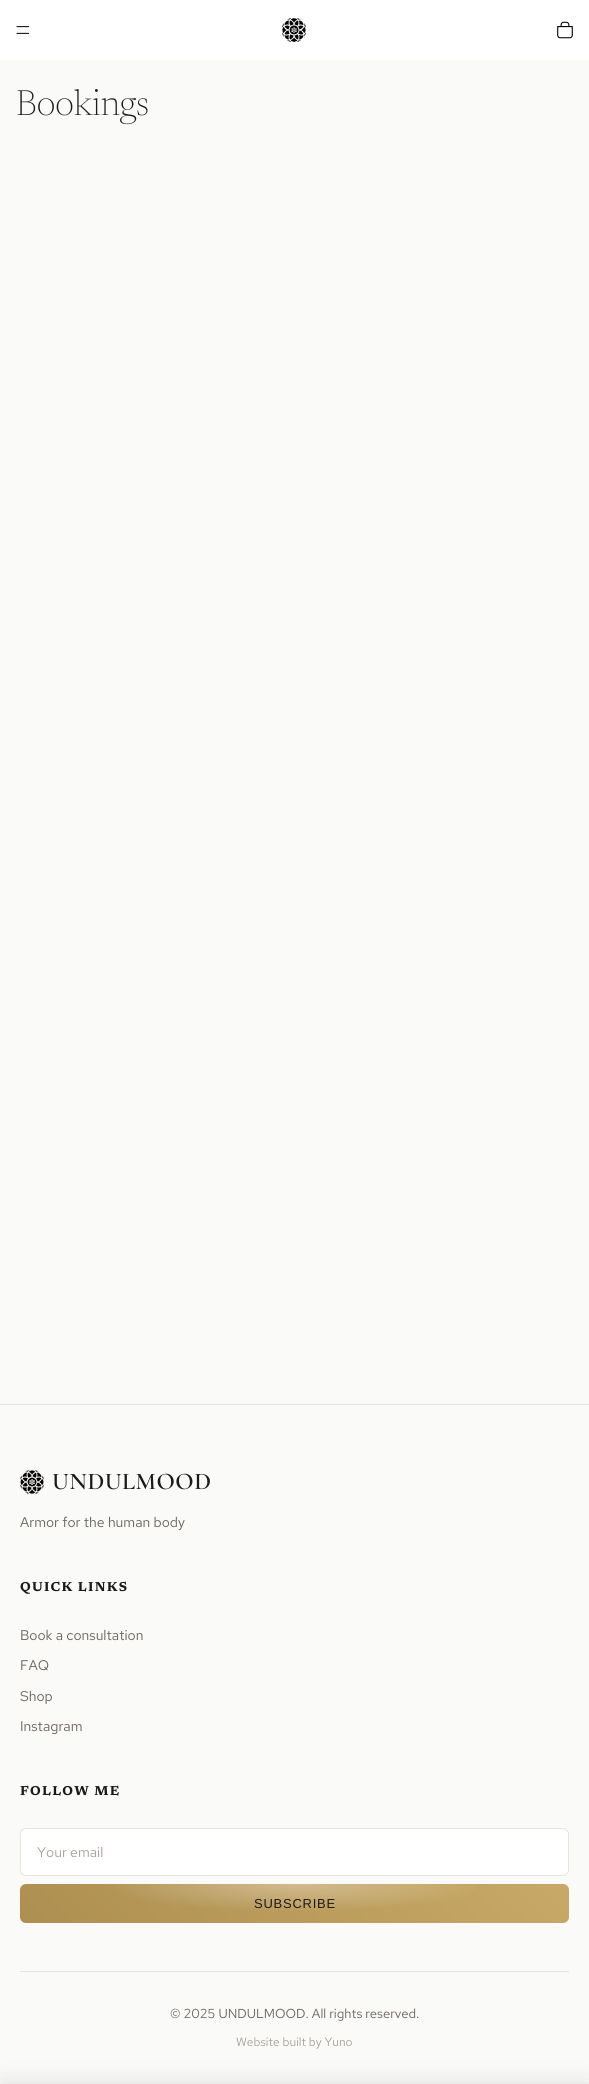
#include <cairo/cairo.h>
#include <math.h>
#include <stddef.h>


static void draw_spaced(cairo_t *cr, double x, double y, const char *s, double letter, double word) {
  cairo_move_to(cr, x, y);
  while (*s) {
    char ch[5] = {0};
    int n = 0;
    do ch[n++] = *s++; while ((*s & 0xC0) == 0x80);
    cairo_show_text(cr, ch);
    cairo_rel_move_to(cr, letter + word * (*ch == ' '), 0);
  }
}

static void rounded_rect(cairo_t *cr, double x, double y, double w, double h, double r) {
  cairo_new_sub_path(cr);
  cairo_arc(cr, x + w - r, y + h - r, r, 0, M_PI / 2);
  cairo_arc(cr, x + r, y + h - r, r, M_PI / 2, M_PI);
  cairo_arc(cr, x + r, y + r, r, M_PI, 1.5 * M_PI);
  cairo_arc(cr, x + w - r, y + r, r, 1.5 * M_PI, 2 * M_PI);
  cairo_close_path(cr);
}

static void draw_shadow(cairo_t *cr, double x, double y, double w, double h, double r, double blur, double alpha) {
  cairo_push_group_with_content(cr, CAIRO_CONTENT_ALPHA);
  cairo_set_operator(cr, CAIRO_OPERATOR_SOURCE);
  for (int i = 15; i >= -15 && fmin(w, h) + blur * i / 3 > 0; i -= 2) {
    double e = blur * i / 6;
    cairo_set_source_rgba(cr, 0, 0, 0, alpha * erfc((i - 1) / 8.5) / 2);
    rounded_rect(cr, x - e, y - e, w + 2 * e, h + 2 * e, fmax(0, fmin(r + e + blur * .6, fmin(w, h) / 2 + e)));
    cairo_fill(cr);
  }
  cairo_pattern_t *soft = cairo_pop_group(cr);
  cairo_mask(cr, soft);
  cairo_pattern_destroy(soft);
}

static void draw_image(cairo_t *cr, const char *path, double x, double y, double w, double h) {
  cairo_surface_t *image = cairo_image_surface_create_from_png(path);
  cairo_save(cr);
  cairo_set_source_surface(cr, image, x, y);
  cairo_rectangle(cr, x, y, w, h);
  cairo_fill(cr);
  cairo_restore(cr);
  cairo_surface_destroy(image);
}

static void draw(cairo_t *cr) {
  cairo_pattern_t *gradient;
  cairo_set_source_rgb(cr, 250 / 255.0, 250 / 255.0, 248 / 255.0);
  cairo_paint(cr);
  cairo_set_source_rgb(cr, 1, 1, 1);
  cairo_rectangle(cr, 0, 0, 589, 60);
  cairo_fill(cr);
  draw_image(cr, "images/1.png", 16, 26, 14, 8);
  draw_image(cr, "images/2.png", 282, 18, 24, 24);
  draw_image(cr, "images/3.png", 557, 21, 16, 18);
  cairo_set_source_rgb(cr, 232 / 255.0, 228 / 255.0, 223 / 255.0);
  cairo_rectangle(cr, 0, 1404, 589, 1);
  cairo_fill(cr);
  draw_image(cr, "images/4.png", 20, 1470, 24, 24);
  cairo_set_source_rgb(cr, 1, 1, 1);
  rounded_rect(cr, 20.5, 1828.5, 548, 47, 5.5);
  cairo_fill_preserve(cr);
  cairo_set_source_rgb(cr, 232 / 255.0, 228 / 255.0, 223 / 255.0);
  cairo_set_line_width(cr, 1);
  cairo_stroke(cr);
  gradient = cairo_pattern_create_linear(530, 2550, 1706, 1374);
  cairo_pattern_add_color_stop_rgba(gradient, 0, 168 / 255.0, 138 / 255.0, 77 / 255.0, 1);
  cairo_pattern_add_color_stop_rgba(gradient, 0.3, 201 / 255.0, 169 / 255.0, 103 / 255.0, 1);
  cairo_pattern_add_color_stop_rgba(gradient, 0.5, 230 / 255.0, 212 / 255.0, 160 / 255.0, 1);
  cairo_pattern_add_color_stop_rgba(gradient, 0.7, 201 / 255.0, 169 / 255.0, 103 / 255.0, 1);
  cairo_pattern_add_color_stop_rgba(gradient, 1, 168 / 255.0, 138 / 255.0, 77 / 255.0, 1);
  cairo_set_source(cr, gradient);
  cairo_pattern_destroy(gradient);
  rounded_rect(cr, 20, 1884, 549, 39, 6);
  cairo_fill(cr);
  gradient = cairo_pattern_create_radial(0, 0, 0, 0, 0, 1);
  cairo_pattern_set_matrix(gradient, &(cairo_matrix_t){1.0 / 388, 0, 0, 1.0 / 55, -1.0 * 295 / 388, -1.0 * 1884 / 55});
  cairo_pattern_add_color_stop_rgba(gradient, 0, 1, 1, 1, 0.3);
  cairo_pattern_add_color_stop_rgba(gradient, 0.5, 1, 1, 1, 0);
  cairo_set_source(cr, gradient);
  cairo_pattern_destroy(gradient);
  cairo_rectangle(cr, 115, 1884, 360, 26);
  cairo_fill(cr);
  cairo_set_source_rgb(cr, 232 / 255.0, 228 / 255.0, 223 / 255.0);
  cairo_rectangle(cr, 20, 1971, 549, 1);
  cairo_fill(cr);
  cairo_set_source_rgb(cr, 0, 0, 0);
  draw_shadow(cr, 0, 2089, 589, 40, 0, 15, 0.15);
  cairo_select_font_face(cr, "Newsreader ExtraLight", CAIRO_FONT_SLANT_NORMAL, CAIRO_FONT_WEIGHT_NORMAL);
  cairo_set_font_size(cr, 36);
  cairo_set_source_rgb(cr, 26 / 255.0, 26 / 255.0, 26 / 255.0);
  cairo_move_to(cr, 16, 115);
  cairo_show_text(cr, "Bookings");
  cairo_select_font_face(cr, "Cormorant SC SemiBold", CAIRO_FONT_SLANT_NORMAL, CAIRO_FONT_WEIGHT_NORMAL);
  cairo_set_font_size(cr, 24);
  draw_spaced(cr, 52, 1489, "UNDULMOOD", 0.5, 0);
  cairo_select_font_face(cr, "Red Hat Text", CAIRO_FONT_SLANT_NORMAL, CAIRO_FONT_WEIGHT_NORMAL);
  cairo_set_font_size(cr, 14);
  cairo_set_source_rgb(cr, 107 / 255.0, 101 / 255.0, 96 / 255.0);
  cairo_move_to(cr, 20, 1527);
  cairo_show_text(cr, "Armor for the human body");
  cairo_select_font_face(cr, "Newsreader", CAIRO_FONT_SLANT_NORMAL, CAIRO_FONT_WEIGHT_BOLD);
  cairo_set_font_size(cr, 13);
  cairo_set_source_rgb(cr, 26 / 255.0, 26 / 255.0, 26 / 255.0);
  draw_spaced(cr, 20, 1591, "QUICK LINKS", 1.25, 0);
  cairo_select_font_face(cr, "Red Hat Text", CAIRO_FONT_SLANT_NORMAL, CAIRO_FONT_WEIGHT_NORMAL);
  cairo_set_font_size(cr, 14);
  cairo_set_source_rgb(cr, 107 / 255.0, 101 / 255.0, 96 / 255.0);
  cairo_move_to(cr, 20, 1640);
  cairo_show_text(cr, "Book a consultation");
  cairo_move_to(cr, 20, 1670);
  cairo_show_text(cr, "FAQ");
  cairo_move_to(cr, 20, 1701);
  cairo_show_text(cr, "Shop");
  cairo_move_to(cr, 20, 1731);
  cairo_show_text(cr, "Instagram");
  cairo_select_font_face(cr, "Newsreader", CAIRO_FONT_SLANT_NORMAL, CAIRO_FONT_WEIGHT_BOLD);
  cairo_set_font_size(cr, 13);
  cairo_set_source_rgb(cr, 26 / 255.0, 26 / 255.0, 26 / 255.0);
  draw_spaced(cr, 20, 1795, "FOLLOW ME", 1.25, 0);
  cairo_select_font_face(cr, "Red Hat Text", CAIRO_FONT_SLANT_NORMAL, CAIRO_FONT_WEIGHT_NORMAL);
  cairo_set_font_size(cr, 14);
  cairo_set_source_rgb(cr, 168 / 255.0, 162 / 255.0, 157 / 255.0);
  cairo_move_to(cr, 37, 1857);
  cairo_show_text(cr, "Your email");
  cairo_select_font_face(cr, "Liberation Sans", CAIRO_FONT_SLANT_NORMAL, CAIRO_FONT_WEIGHT_NORMAL);
  cairo_set_font_size(cr, 13);
  cairo_set_source_rgb(cr, 26 / 255.0, 26 / 255.0, 26 / 255.0);
  draw_spaced(cr, 254, 1908, "SUBSCRIBE", 0.75, 0);
  cairo_select_font_face(cr, "Red Hat Text", CAIRO_FONT_SLANT_NORMAL, CAIRO_FONT_WEIGHT_NORMAL);
  cairo_set_source_rgb(cr, 107 / 255.0, 101 / 255.0, 96 / 255.0);
  cairo_move_to(cr, 170, 2018);
  cairo_show_text(cr, "© 2025 UNDULMOOD. All rights reserved.");
  cairo_set_font_size(cr, 12);
  cairo_set_source_rgb(cr, 168 / 255.0, 162 / 255.0, 157 / 255.0);
  cairo_move_to(cr, 236, 2046);
  cairo_show_text(cr, "Website built by Yuno");
}

int main(void) {
  cairo_surface_t *surface = cairo_image_surface_create(CAIRO_FORMAT_RGB24, 589, 2084);
  cairo_t *cr = cairo_create(surface);
  cairo_font_options_t *options = cairo_font_options_create();
  cairo_font_options_set_hint_metrics(options, CAIRO_HINT_METRICS_OFF);
  cairo_font_options_set_hint_style(options, CAIRO_HINT_STYLE_NONE);
  cairo_set_font_options(cr, options);
  cairo_set_miter_limit(cr, 4);
  draw(cr);
  cairo_surface_write_to_png(surface, "out.png");
  cairo_font_options_destroy(options);
  cairo_destroy(cr);
  cairo_surface_destroy(surface);
  return 0;
}
